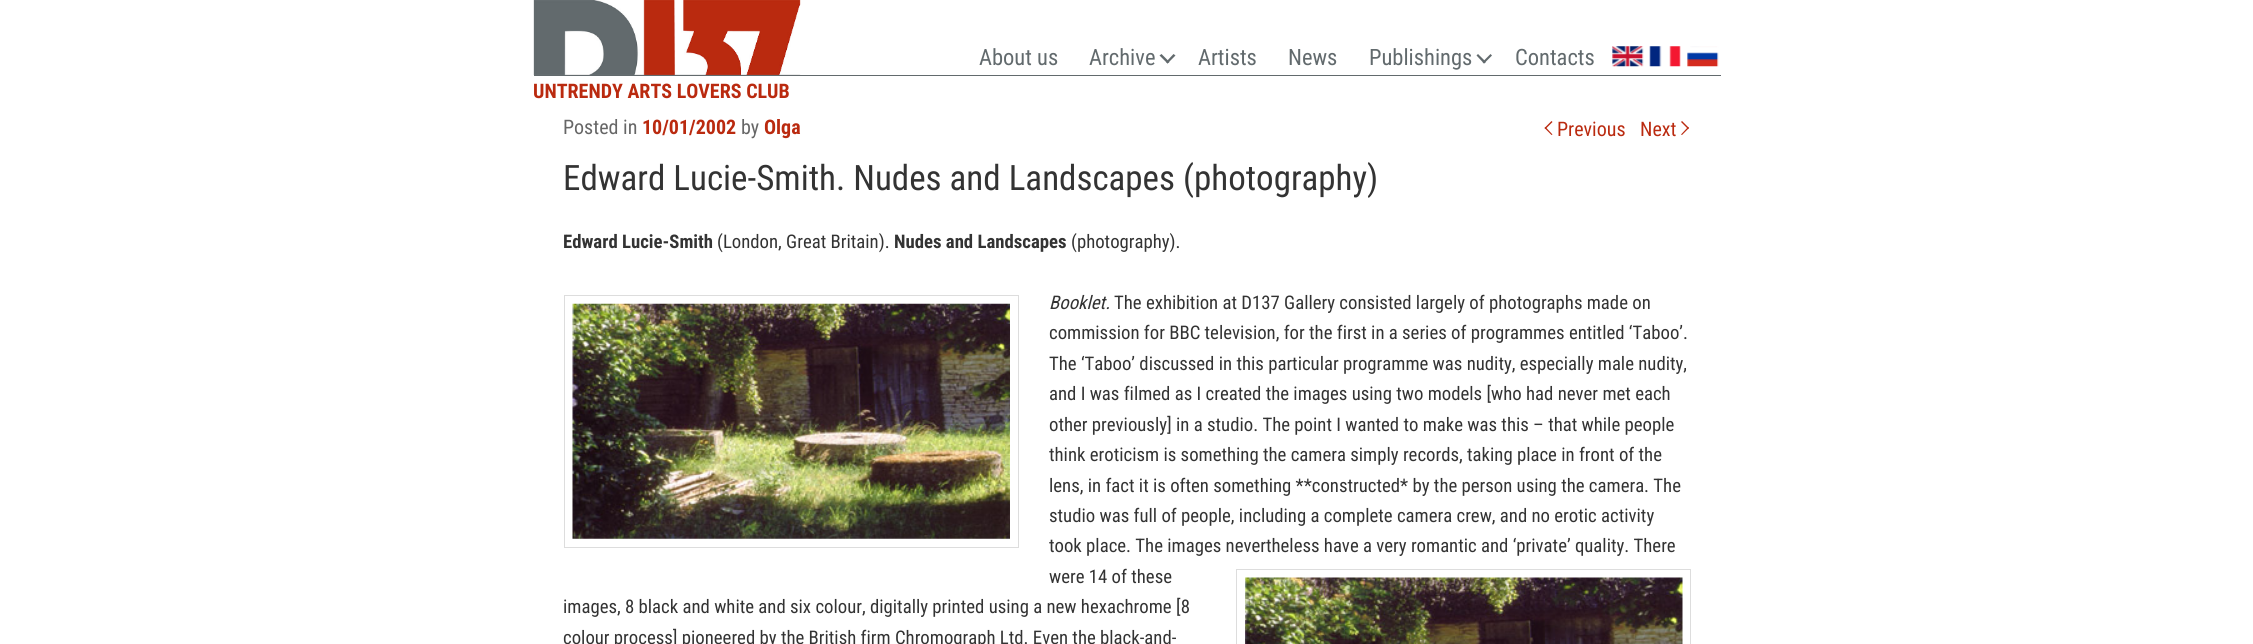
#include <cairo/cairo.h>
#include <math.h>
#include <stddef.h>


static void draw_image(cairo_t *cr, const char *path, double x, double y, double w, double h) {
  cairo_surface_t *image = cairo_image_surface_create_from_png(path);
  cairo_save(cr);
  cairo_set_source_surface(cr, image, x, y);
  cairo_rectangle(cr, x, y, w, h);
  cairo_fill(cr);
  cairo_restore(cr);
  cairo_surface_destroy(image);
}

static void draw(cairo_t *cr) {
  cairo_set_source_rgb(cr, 1, 1, 1);
  cairo_paint(cr);
  cairo_set_source_rgb(cr, 98 / 255.0, 106 / 255.0, 109 / 255.0);
  cairo_rectangle(cr, 534, 75, 1187, 1);
  cairo_fill(cr);
  draw_image(cr, "images/1.png", 533, 0, 268, 75);
  cairo_new_path(cr);
  cairo_move_to(cr, 1173.5, 54);
  cairo_line_to(cr, 1175.5, 55.5);
  cairo_line_to(cr, 1167.5, 63.5);
  cairo_line_to(cr, 1166, 62);
  cairo_close_path(cr);
  cairo_fill(cr);
  cairo_new_path(cr);
  cairo_move_to(cr, 1161.5, 54);
  cairo_line_to(cr, 1169.5, 62);
  cairo_line_to(cr, 1167.5, 63.5);
  cairo_line_to(cr, 1159.5, 55.5);
  cairo_close_path(cr);
  cairo_fill(cr);
  cairo_new_path(cr);
  cairo_move_to(cr, 1490.5, 54);
  cairo_line_to(cr, 1492, 55.5);
  cairo_line_to(cr, 1484, 63.5);
  cairo_line_to(cr, 1482.5, 62);
  cairo_close_path(cr);
  cairo_fill(cr);
  cairo_new_path(cr);
  cairo_move_to(cr, 1478, 54);
  cairo_line_to(cr, 1486, 62);
  cairo_line_to(cr, 1484, 63.5);
  cairo_line_to(cr, 1476.5, 55.5);
  cairo_close_path(cr);
  cairo_fill(cr);
  draw_image(cr, "images/2.png", 1612, 46, 32, 21);
  draw_image(cr, "images/3.png", 1649, 46, 32, 21);
  draw_image(cr, "images/4.png", 1687, 46, 32, 21);
  cairo_rectangle(cr, 564.5, 295.5, 454, 252);
  cairo_set_source_rgb(cr, 221 / 255.0, 221 / 255.0, 221 / 255.0);
  cairo_set_line_width(cr, 1);
  cairo_stroke(cr);
  draw_image(cr, "images/5.png", 572, 303, 438, 236);
  cairo_rectangle(cr, 1236.5, 569.5, 454, 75);
  cairo_stroke(cr);
  draw_image(cr, "images/6.png", 1245, 577, 438, 67);
  cairo_set_source_rgb(cr, 186 / 255.0, 42 / 255.0, 15 / 255.0);
  cairo_new_path(cr);
  cairo_move_to(cr, 1552.5, 134.5);
  cairo_line_to(cr, 1551.5, 135);
  cairo_line_to(cr, 1544.5, 128);
  cairo_line_to(cr, 1545.5, 127);
  cairo_close_path(cr);
  cairo_fill(cr);
  cairo_new_path(cr);
  cairo_move_to(cr, 1552.5, 122);
  cairo_line_to(cr, 1545.5, 129);
  cairo_line_to(cr, 1544.5, 128);
  cairo_line_to(cr, 1551.5, 121);
  cairo_close_path(cr);
  cairo_fill(cr);
  cairo_new_path(cr);
  cairo_move_to(cr, 1681, 122);
  cairo_line_to(cr, 1682, 121);
  cairo_line_to(cr, 1689, 128);
  cairo_line_to(cr, 1688, 129);
  cairo_close_path(cr);
  cairo_fill(cr);
  cairo_new_path(cr);
  cairo_move_to(cr, 1681, 134.5);
  cairo_line_to(cr, 1688, 127);
  cairo_line_to(cr, 1689, 128);
  cairo_line_to(cr, 1682, 135);
  cairo_close_path(cr);
  cairo_fill(cr);
  cairo_select_font_face(cr, "Roboto Condensed", CAIRO_FONT_SLANT_NORMAL, CAIRO_FONT_WEIGHT_NORMAL);
  cairo_set_font_size(cr, 22.5);
  cairo_set_source_rgb(cr, 98 / 255.0, 106 / 255.0, 109 / 255.0);
  cairo_move_to(cr, 979, 65);
  cairo_show_text(cr, "About us");
  cairo_move_to(cr, 1089, 65);
  cairo_show_text(cr, "Archive");
  cairo_move_to(cr, 1198, 65);
  cairo_show_text(cr, "Artists");
  cairo_move_to(cr, 1288, 65);
  cairo_show_text(cr, "News");
  cairo_move_to(cr, 1369, 65);
  cairo_show_text(cr, "Publishings");
  cairo_move_to(cr, 1515, 65);
  cairo_show_text(cr, "Contacts");
  cairo_select_font_face(cr, "Roboto Condensed", CAIRO_FONT_SLANT_NORMAL, CAIRO_FONT_WEIGHT_BOLD);
  cairo_set_font_size(cr, 20);
  cairo_set_source_rgb(cr, 186 / 255.0, 42 / 255.0, 15 / 255.0);
  cairo_move_to(cr, 533, 98);
  cairo_show_text(cr, "UNTRENDY ARTS LOVERS CLUB");
  cairo_select_font_face(cr, "Roboto Condensed", CAIRO_FONT_SLANT_NORMAL, CAIRO_FONT_WEIGHT_NORMAL);
  cairo_set_source_rgb(cr, 102 / 255.0, 102 / 255.0, 102 / 255.0);
  cairo_move_to(cr, 563, 134);
  cairo_show_text(cr, "Posted in");
  cairo_select_font_face(cr, "Roboto Condensed", CAIRO_FONT_SLANT_NORMAL, CAIRO_FONT_WEIGHT_BOLD);
  cairo_set_source_rgb(cr, 186 / 255.0, 42 / 255.0, 15 / 255.0);
  cairo_move_to(cr, 642, 134);
  cairo_show_text(cr, "10/01/2002");
  cairo_select_font_face(cr, "Roboto Condensed", CAIRO_FONT_SLANT_NORMAL, CAIRO_FONT_WEIGHT_NORMAL);
  cairo_set_source_rgb(cr, 102 / 255.0, 102 / 255.0, 102 / 255.0);
  cairo_move_to(cr, 741, 134);
  cairo_show_text(cr, "by");
  cairo_select_font_face(cr, "Roboto Condensed", CAIRO_FONT_SLANT_NORMAL, CAIRO_FONT_WEIGHT_BOLD);
  cairo_set_source_rgb(cr, 186 / 255.0, 42 / 255.0, 15 / 255.0);
  cairo_move_to(cr, 764, 134);
  cairo_show_text(cr, "Olga");
  cairo_select_font_face(cr, "Roboto Condensed", CAIRO_FONT_SLANT_NORMAL, CAIRO_FONT_WEIGHT_NORMAL);
  cairo_set_font_size(cr, 35);
  cairo_set_source_rgb(cr, 51 / 255.0, 51 / 255.0, 51 / 255.0);
  cairo_move_to(cr, 563, 190);
  cairo_show_text(cr, "Edward Lucie-Smith. Nudes and Landscapes (photography)");
  cairo_select_font_face(cr, "Roboto Condensed", CAIRO_FONT_SLANT_NORMAL, CAIRO_FONT_WEIGHT_BOLD);
  cairo_set_font_size(cr, 18.75);
  cairo_move_to(cr, 563, 248);
  cairo_show_text(cr, "Edward Lucie-Smith");
  cairo_select_font_face(cr, "Roboto Condensed", CAIRO_FONT_SLANT_NORMAL, CAIRO_FONT_WEIGHT_NORMAL);
  cairo_move_to(cr, 717, 248);
  cairo_show_text(cr, "(London, Great Britain).");
  cairo_select_font_face(cr, "Roboto Condensed", CAIRO_FONT_SLANT_NORMAL, CAIRO_FONT_WEIGHT_BOLD);
  cairo_move_to(cr, 894, 248);
  cairo_show_text(cr, "Nudes and Landscapes");
  cairo_select_font_face(cr, "Roboto Condensed", CAIRO_FONT_SLANT_NORMAL, CAIRO_FONT_WEIGHT_NORMAL);
  cairo_move_to(cr, 1071, 248);
  cairo_show_text(cr, "(photography).");
  cairo_select_font_face(cr, "Roboto Condensed", CAIRO_FONT_SLANT_ITALIC, CAIRO_FONT_WEIGHT_NORMAL);
  cairo_move_to(cr, 1049, 309);
  cairo_show_text(cr, "Booklet.");
  cairo_select_font_face(cr, "Roboto Condensed", CAIRO_FONT_SLANT_NORMAL, CAIRO_FONT_WEIGHT_NORMAL);
  cairo_move_to(cr, 1114, 309);
  cairo_show_text(cr, "The exhibition at D137 Gallery consisted largely of photographs made on");
  cairo_move_to(cr, 1049, 339);
  cairo_show_text(cr, "commission for BBC television, for the first in a series of programmes entitled ‘Taboo’.");
  cairo_move_to(cr, 1049, 370);
  cairo_show_text(cr, "The ‘Taboo’ discussed in this particular programme was nudity, especially male nudity,");
  cairo_move_to(cr, 1049, 400);
  cairo_show_text(cr, "and I was filmed as I created the images using two models [who had never met each");
  cairo_move_to(cr, 1049, 431);
  cairo_show_text(cr, "other previously] in a studio. The point I wanted to make was this – that while people");
  cairo_move_to(cr, 1049, 461);
  cairo_show_text(cr, "think eroticism is something the camera simply records, taking place in front of the");
  cairo_move_to(cr, 1049, 492);
  cairo_show_text(cr, "lens, in fact it is often something **constructed* by the person using the camera. The");
  cairo_move_to(cr, 1049, 522);
  cairo_show_text(cr, "studio was full of people, including a complete camera crew, and no erotic activity");
  cairo_move_to(cr, 1049, 552);
  cairo_show_text(cr, "took place. The images nevertheless have a very romantic and ‘private’ quality. There");
  cairo_move_to(cr, 1049, 583);
  cairo_show_text(cr, "were 14 of these");
  cairo_move_to(cr, 563, 613);
  cairo_show_text(cr, "images, 8 black and white and six colour, digitally printed using a new hexachrome [8");
  cairo_move_to(cr, 563, 644);
  cairo_show_text(cr, "colour process] pioneered by the British firm Chromograph Ltd. Even the black-and-");
  cairo_set_font_size(cr, 20);
  cairo_set_source_rgb(cr, 186 / 255.0, 42 / 255.0, 15 / 255.0);
  cairo_move_to(cr, 1557, 136);
  cairo_show_text(cr, "Previous");
  cairo_move_to(cr, 1640, 136);
  cairo_show_text(cr, "Next");
}

int main(void) {
  cairo_surface_t *surface = cairo_image_surface_create(CAIRO_FORMAT_RGB24, 2253, 644);
  cairo_t *cr = cairo_create(surface);
  cairo_font_options_t *options = cairo_font_options_create();
  cairo_font_options_set_hint_metrics(options, CAIRO_HINT_METRICS_OFF);
  cairo_font_options_set_hint_style(options, CAIRO_HINT_STYLE_NONE);
  cairo_set_font_options(cr, options);
  cairo_set_miter_limit(cr, 4);
  draw(cr);
  cairo_surface_write_to_png(surface, "out.png");
  cairo_font_options_destroy(options);
  cairo_destroy(cr);
  cairo_surface_destroy(surface);
  return 0;
}
